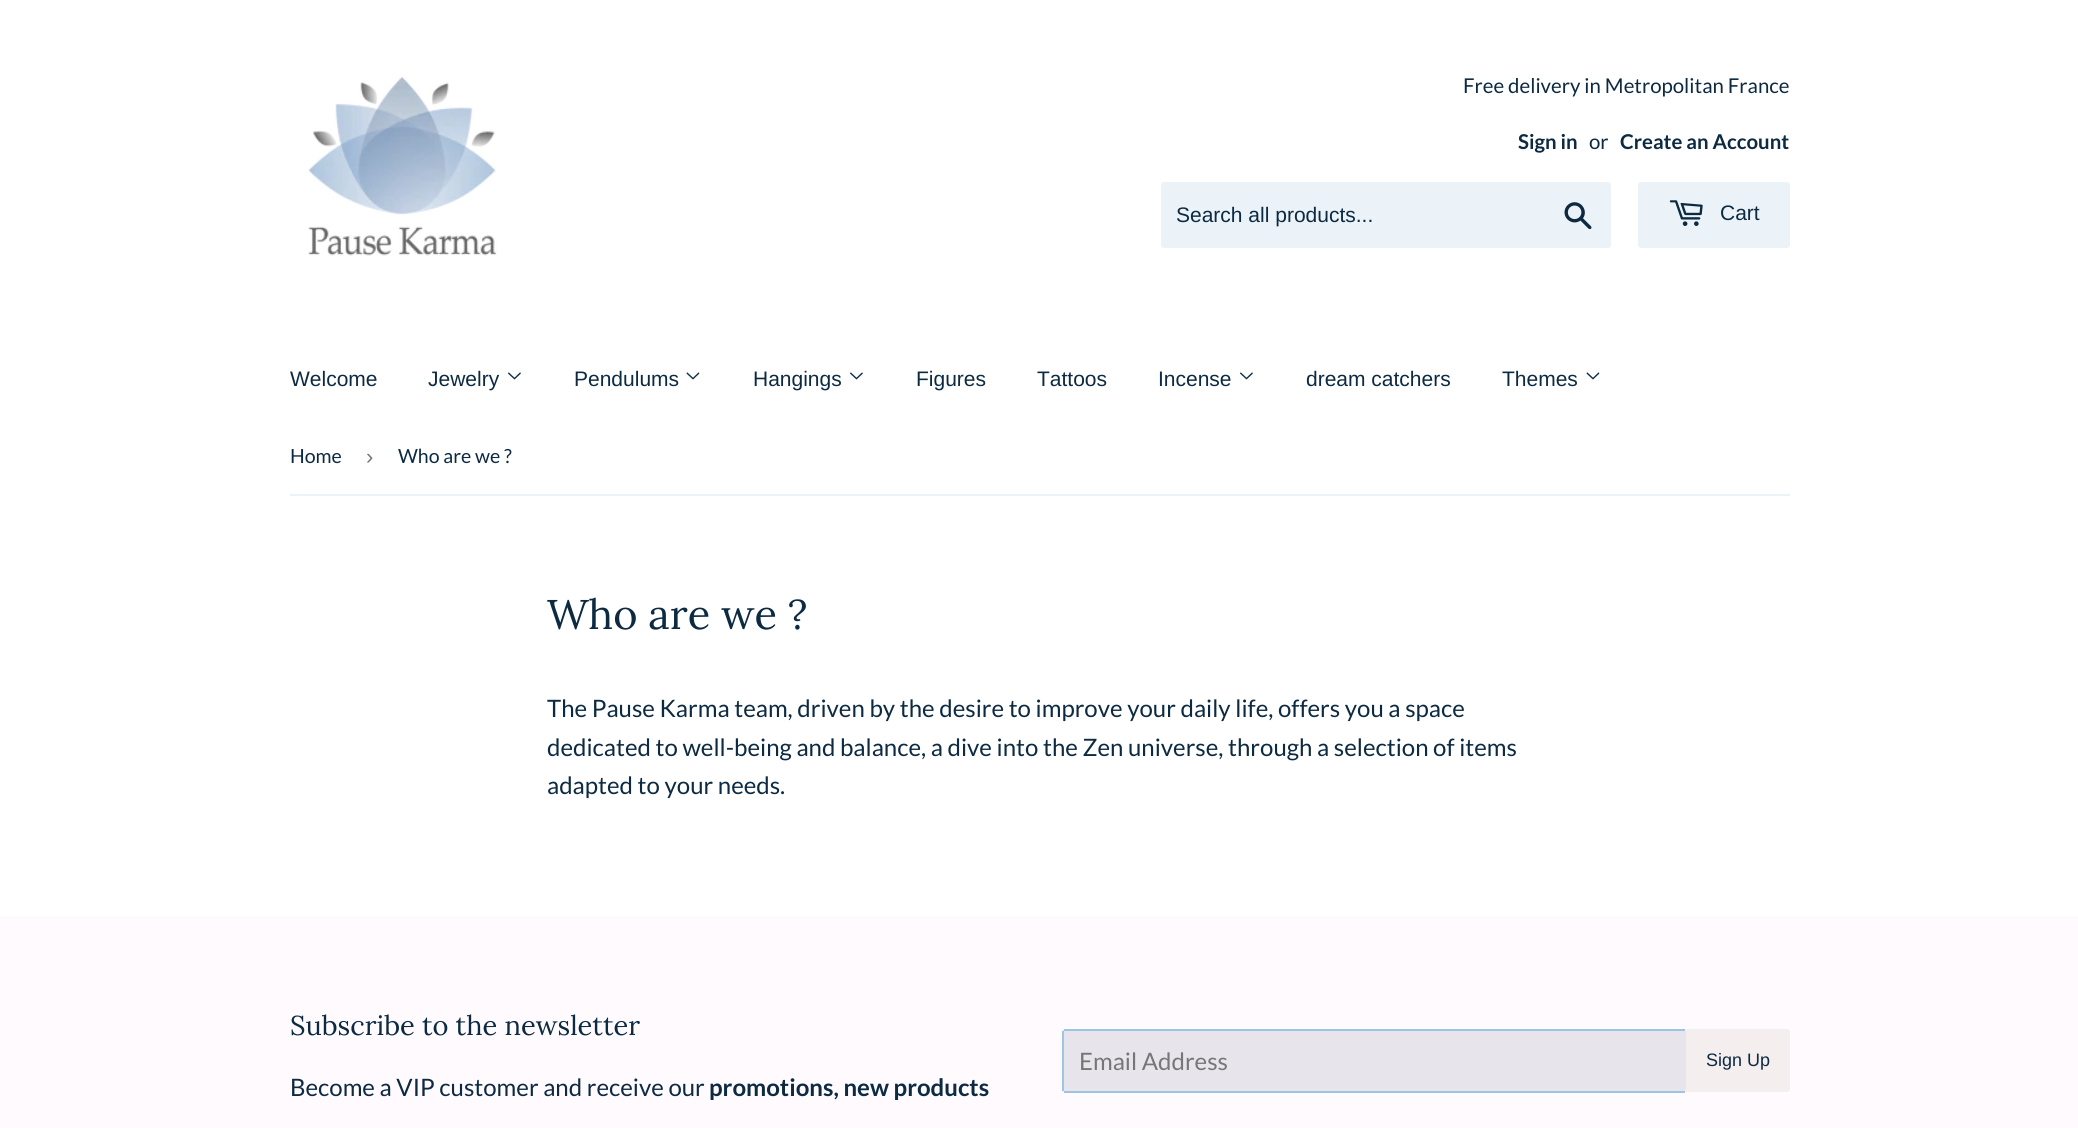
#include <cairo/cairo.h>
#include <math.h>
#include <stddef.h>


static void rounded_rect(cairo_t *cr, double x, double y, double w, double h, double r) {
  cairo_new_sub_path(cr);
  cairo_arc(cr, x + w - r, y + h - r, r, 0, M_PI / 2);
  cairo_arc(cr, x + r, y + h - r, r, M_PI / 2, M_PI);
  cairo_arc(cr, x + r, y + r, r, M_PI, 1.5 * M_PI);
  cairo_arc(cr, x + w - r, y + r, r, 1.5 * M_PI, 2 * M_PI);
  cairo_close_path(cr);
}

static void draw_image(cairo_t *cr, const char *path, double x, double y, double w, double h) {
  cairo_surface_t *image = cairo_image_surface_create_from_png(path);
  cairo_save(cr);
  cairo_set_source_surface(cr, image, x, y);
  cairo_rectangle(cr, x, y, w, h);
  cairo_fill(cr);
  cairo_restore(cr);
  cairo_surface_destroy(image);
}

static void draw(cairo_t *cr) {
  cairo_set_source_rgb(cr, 1, 1, 1);
  cairo_paint(cr);
  draw_image(cr, "images/1.png", 308, 76, 189, 180);
  cairo_set_source_rgb(cr, 235 / 255.0, 243 / 255.0, 249 / 255.0);
  rounded_rect(cr, 1161, 182, 450, 66, 3);
  cairo_fill(cr);
  draw_image(cr, "images/2.png", 1564, 202, 28, 28);
  rounded_rect(cr, 1638, 182, 152, 66, 3);
  cairo_fill(cr);
  draw_image(cr, "images/3.png", 1669, 200, 34, 26);
  draw_image(cr, "images/4.png", 508, 372, 13, 8);
  draw_image(cr, "images/5.png", 686, 372, 14, 8);
  draw_image(cr, "images/4.png", 850, 372, 13, 8);
  draw_image(cr, "images/4.png", 1240, 372, 13, 8);
  draw_image(cr, "images/5.png", 1586, 372, 14, 8);
  cairo_rectangle(cr, 290, 494, 1500, 2);
  cairo_fill(cr);
  cairo_set_source_rgb(cr, 1, 250 / 255.0, 254 / 255.0);
  cairo_rectangle(cr, 0, 917, 2078, 211);
  cairo_fill(cr);
  cairo_set_source_rgb(cr, 231 / 255.0, 229 / 255.0, 235 / 255.0);
  rounded_rect(cr, 1062, 1029, 624, 63, 3);
  cairo_fill(cr);
  cairo_set_source_rgb(cr, 157 / 255.0, 196 / 255.0, 225 / 255.0);
  cairo_rectangle(cr, 1064, 1029, 621, 2);
  cairo_fill(cr);
  cairo_rectangle(cr, 1064, 1091, 621, 2);
  cairo_fill(cr);
  cairo_rectangle(cr, 1062, 1031, 2, 60);
  cairo_fill(cr);
  cairo_set_source_rgb(cr, 244 / 255.0, 238 / 255.0, 238 / 255.0);
  cairo_new_path(cr);
  cairo_move_to(cr, 1686, 1029);
  cairo_line_to(cr, 1787, 1029);
  cairo_curve_to(cr, 1788.5, 1029, 1790, 1030.5, 1790, 1032);
  cairo_line_to(cr, 1790, 1089);
  cairo_curve_to(cr, 1790, 1090.5, 1788.5, 1092, 1787, 1092);
  cairo_line_to(cr, 1686, 1092);
  cairo_close_path(cr);
  cairo_fill(cr);
  cairo_select_font_face(cr, "Lato", CAIRO_FONT_SLANT_NORMAL, CAIRO_FONT_WEIGHT_NORMAL);
  cairo_set_font_size(cr, 20.4);
  cairo_set_source_rgb(cr, 12 / 255.0, 42 / 255.0, 65 / 255.0);
  cairo_move_to(cr, 1463, 93);
  cairo_show_text(cr, "Free delivery in Metropolitan France");
  cairo_select_font_face(cr, "Lato", CAIRO_FONT_SLANT_NORMAL, CAIRO_FONT_WEIGHT_BOLD);
  cairo_move_to(cr, 1518, 149);
  cairo_show_text(cr, "Sign in");
  cairo_select_font_face(cr, "Lato", CAIRO_FONT_SLANT_NORMAL, CAIRO_FONT_WEIGHT_NORMAL);
  cairo_move_to(cr, 1589, 149);
  cairo_show_text(cr, "or");
  cairo_select_font_face(cr, "Lato", CAIRO_FONT_SLANT_NORMAL, CAIRO_FONT_WEIGHT_BOLD);
  cairo_move_to(cr, 1620, 149);
  cairo_show_text(cr, "Create an Account");
  cairo_select_font_face(cr, "Liberation Sans", CAIRO_FONT_SLANT_NORMAL, CAIRO_FONT_WEIGHT_NORMAL);
  cairo_set_font_size(cr, 21);
  cairo_move_to(cr, 1176, 222);
  cairo_show_text(cr, "Search all products...");
  cairo_move_to(cr, 1720, 220);
  cairo_show_text(cr, "Cart");
  cairo_move_to(cr, 290, 386);
  cairo_show_text(cr, "Welcome");
  cairo_move_to(cr, 428, 386);
  cairo_show_text(cr, "Jewelry");
  cairo_move_to(cr, 574, 386);
  cairo_show_text(cr, "Pendulums");
  cairo_move_to(cr, 753, 386);
  cairo_show_text(cr, "Hangings");
  cairo_move_to(cr, 916, 386);
  cairo_show_text(cr, "Figures");
  cairo_move_to(cr, 1037, 386);
  cairo_show_text(cr, "Tattoos");
  cairo_move_to(cr, 1158, 386);
  cairo_show_text(cr, "Incense");
  cairo_move_to(cr, 1306, 386);
  cairo_show_text(cr, "dream catchers");
  cairo_move_to(cr, 1502, 386);
  cairo_show_text(cr, "Themes");
  cairo_select_font_face(cr, "Lato", CAIRO_FONT_SLANT_NORMAL, CAIRO_FONT_WEIGHT_NORMAL);
  cairo_set_font_size(cr, 19.5);
  cairo_move_to(cr, 290, 463);
  cairo_show_text(cr, "Home");
  cairo_select_font_face(cr, "Liberation Sans", CAIRO_FONT_SLANT_NORMAL, CAIRO_FONT_WEIGHT_NORMAL);
  cairo_set_font_size(cr, 22);
  cairo_set_source_rgb(cr, 118 / 255.0, 118 / 255.0, 118 / 255.0);
  cairo_move_to(cr, 366, 464);
  cairo_show_text(cr, "›");
  cairo_select_font_face(cr, "Lato", CAIRO_FONT_SLANT_NORMAL, CAIRO_FONT_WEIGHT_NORMAL);
  cairo_set_font_size(cr, 19.5);
  cairo_set_source_rgb(cr, 12 / 255.0, 42 / 255.0, 65 / 255.0);
  cairo_move_to(cr, 398, 463);
  cairo_show_text(cr, "Who are we ?");
  cairo_select_font_face(cr, "Lora", CAIRO_FONT_SLANT_NORMAL, CAIRO_FONT_WEIGHT_NORMAL);
  cairo_set_font_size(cr, 41.5);
  cairo_move_to(cr, 547, 629);
  cairo_show_text(cr, "Who are we ?");
  cairo_select_font_face(cr, "Lato", CAIRO_FONT_SLANT_NORMAL, CAIRO_FONT_WEIGHT_NORMAL);
  cairo_set_font_size(cr, 24);
  cairo_move_to(cr, 547, 717);
  cairo_show_text(cr, "The Pause Karma team, driven by the desire to improve your daily life, offers you a space");
  cairo_move_to(cr, 547, 756);
  cairo_show_text(cr, "dedicated to well-being and balance, a dive into the Zen universe, through a selection of items");
  cairo_move_to(cr, 547, 794);
  cairo_show_text(cr, "adapted to your needs.");
  cairo_select_font_face(cr, "Lora", CAIRO_FONT_SLANT_NORMAL, CAIRO_FONT_WEIGHT_NORMAL);
  cairo_set_font_size(cr, 27.25);
  cairo_move_to(cr, 290, 1035);
  cairo_show_text(cr, "Subscribe to the newsletter");
  cairo_select_font_face(cr, "Lato", CAIRO_FONT_SLANT_NORMAL, CAIRO_FONT_WEIGHT_NORMAL);
  cairo_set_font_size(cr, 24);
  cairo_move_to(cr, 290, 1096);
  cairo_show_text(cr, "Become a VIP customer and receive our");
  cairo_select_font_face(cr, "Lato", CAIRO_FONT_SLANT_NORMAL, CAIRO_FONT_WEIGHT_BOLD);
  cairo_move_to(cr, 709, 1096);
  cairo_show_text(cr, "promotions, new products");
  cairo_select_font_face(cr, "Lato", CAIRO_FONT_SLANT_NORMAL, CAIRO_FONT_WEIGHT_NORMAL);
  cairo_set_source_rgb(cr, 118 / 255.0, 118 / 255.0, 118 / 255.0);
  cairo_move_to(cr, 1079, 1070);
  cairo_show_text(cr, "Email Address");
  cairo_select_font_face(cr, "Liberation Sans", CAIRO_FONT_SLANT_NORMAL, CAIRO_FONT_WEIGHT_NORMAL);
  cairo_set_font_size(cr, 18);
  cairo_set_source_rgb(cr, 12 / 255.0, 42 / 255.0, 65 / 255.0);
  cairo_move_to(cr, 1706, 1066);
  cairo_show_text(cr, "Sign Up");
}

int main(void) {
  cairo_surface_t *surface = cairo_image_surface_create(CAIRO_FORMAT_RGB24, 2078, 1128);
  cairo_t *cr = cairo_create(surface);
  cairo_font_options_t *options = cairo_font_options_create();
  cairo_font_options_set_hint_metrics(options, CAIRO_HINT_METRICS_OFF);
  cairo_font_options_set_hint_style(options, CAIRO_HINT_STYLE_NONE);
  cairo_set_font_options(cr, options);
  cairo_set_miter_limit(cr, 4);
  draw(cr);
  cairo_surface_write_to_png(surface, "out.png");
  cairo_font_options_destroy(options);
  cairo_destroy(cr);
  cairo_surface_destroy(surface);
  return 0;
}
